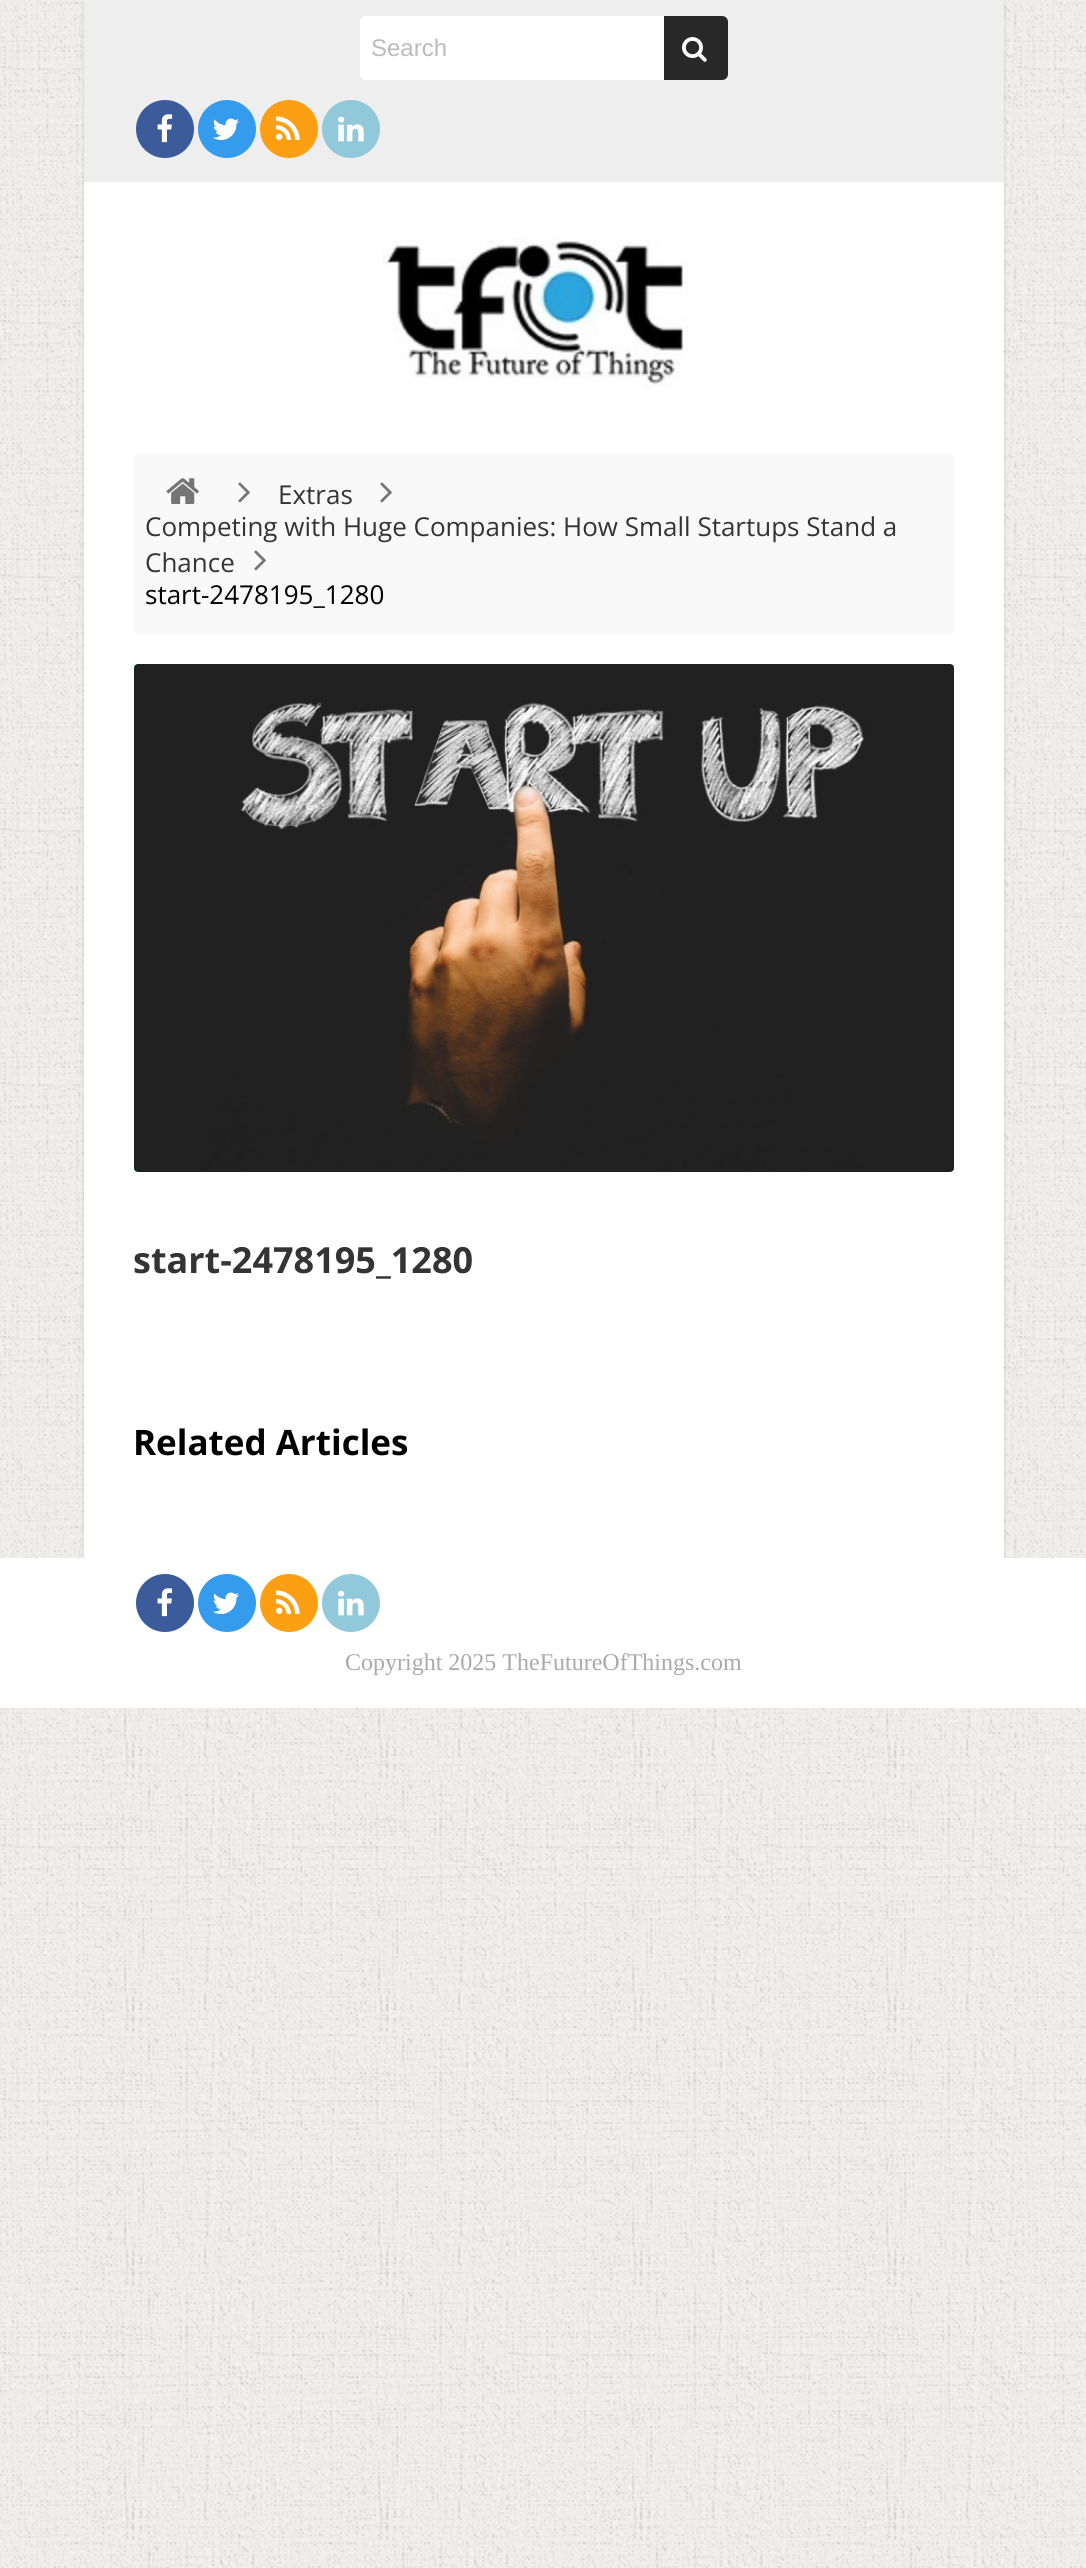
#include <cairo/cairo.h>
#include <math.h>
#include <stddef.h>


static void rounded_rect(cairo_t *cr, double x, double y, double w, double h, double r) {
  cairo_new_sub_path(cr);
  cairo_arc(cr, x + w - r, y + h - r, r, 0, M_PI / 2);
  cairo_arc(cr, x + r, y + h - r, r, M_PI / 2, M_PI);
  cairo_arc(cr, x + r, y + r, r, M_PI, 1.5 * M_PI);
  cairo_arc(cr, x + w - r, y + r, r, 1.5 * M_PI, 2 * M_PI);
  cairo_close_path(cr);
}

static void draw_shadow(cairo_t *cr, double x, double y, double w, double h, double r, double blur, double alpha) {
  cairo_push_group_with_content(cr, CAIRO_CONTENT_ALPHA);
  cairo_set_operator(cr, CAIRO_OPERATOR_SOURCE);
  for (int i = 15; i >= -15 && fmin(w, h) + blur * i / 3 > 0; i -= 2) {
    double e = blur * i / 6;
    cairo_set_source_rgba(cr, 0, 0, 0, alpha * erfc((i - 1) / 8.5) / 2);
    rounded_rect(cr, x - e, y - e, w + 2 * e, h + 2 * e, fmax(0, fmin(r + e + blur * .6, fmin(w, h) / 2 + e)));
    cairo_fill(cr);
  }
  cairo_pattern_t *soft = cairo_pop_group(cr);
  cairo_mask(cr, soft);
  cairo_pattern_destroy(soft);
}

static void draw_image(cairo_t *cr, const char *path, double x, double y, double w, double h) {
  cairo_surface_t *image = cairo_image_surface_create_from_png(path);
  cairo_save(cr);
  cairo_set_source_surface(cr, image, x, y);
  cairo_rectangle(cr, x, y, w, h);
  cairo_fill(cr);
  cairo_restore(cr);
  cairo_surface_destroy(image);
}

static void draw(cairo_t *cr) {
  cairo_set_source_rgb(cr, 1, 1, 1);
  cairo_paint(cr);
  draw_image(cr, "images/1.png", 0, 0, 1086, 2568);
  cairo_set_source_rgb(cr, 0, 0, 0);
  draw_shadow(cr, 84, 2, 920, 1558, 0, 2, 0.15);
  cairo_set_source_rgb(cr, 1, 1, 1);
  cairo_rectangle(cr, 84, 182, 920, 1376);
  cairo_fill(cr);
  cairo_set_source_rgb(cr, 238 / 255.0, 238 / 255.0, 238 / 255.0);
  cairo_rectangle(cr, 84, 0, 920, 182);
  cairo_fill(cr);
  cairo_set_source_rgb(cr, 1, 1, 1);
  cairo_new_path(cr);
  cairo_move_to(cr, 366, 16);
  cairo_line_to(cr, 664, 16);
  cairo_line_to(cr, 664, 80);
  cairo_line_to(cr, 366, 80);
  cairo_curve_to(cr, 362.5, 80, 360, 77.5, 360, 74);
  cairo_line_to(cr, 360, 22);
  cairo_curve_to(cr, 360, 18.5, 362.5, 16, 366, 16);
  cairo_close_path(cr);
  cairo_fill(cr);
  cairo_set_source_rgb(cr, 41 / 255.0, 41 / 255.0, 42 / 255.0);
  cairo_new_path(cr);
  cairo_move_to(cr, 664, 16);
  cairo_line_to(cr, 722, 16);
  cairo_curve_to(cr, 725.5, 16, 728, 18.5, 728, 22);
  cairo_line_to(cr, 728, 74);
  cairo_curve_to(cr, 728, 77.5, 725.5, 80, 722, 80);
  cairo_line_to(cr, 664, 80);
  cairo_close_path(cr);
  cairo_fill(cr);
  draw_image(cr, "images/2.png", 682, 37, 25, 25);
  cairo_set_source_rgb(cr, 60 / 255.0, 91 / 255.0, 155 / 255.0);
  cairo_arc(cr, 165, 129, 29, 0, 2 * M_PI);
  cairo_fill(cr);
  draw_image(cr, "images/3.png", 157, 114, 16, 29);
  cairo_set_source_rgb(cr, 53 / 255.0, 155 / 255.0, 237 / 255.0);
  cairo_arc(cr, 227, 129, 29, 0, 2 * M_PI);
  cairo_fill(cr);
  draw_image(cr, "images/4.png", 213, 118, 26, 22);
  cairo_set_source_rgb(cr, 253 / 255.0, 159 / 255.0, 19 / 255.0);
  cairo_arc(cr, 289, 129, 29, 0, 2 * M_PI);
  cairo_fill(cr);
  draw_image(cr, "images/5.png", 276, 116, 24, 24);
  cairo_set_source_rgb(cr, 145 / 255.0, 201 / 255.0, 219 / 255.0);
  cairo_arc(cr, 351, 129, 29, 0, 2 * M_PI);
  cairo_fill(cr);
  draw_image(cr, "images/6.png", 338, 116, 26, 26);
  draw_image(cr, "images/7.png", 382, 238, 306, 150);
  cairo_set_source_rgb(cr, 249 / 255.0, 249 / 255.0, 249 / 255.0);
  rounded_rect(cr, 134, 454, 820, 180, 4);
  cairo_fill(cr);
  draw_image(cr, "images/8.png", 166, 478, 33, 26);
  draw_image(cr, "images/9.png", 238, 482, 12, 21);
  draw_image(cr, "images/9.png", 380, 482, 12, 21);
  draw_image(cr, "images/9.png", 254, 550, 12, 21);
  cairo_set_source_rgb(cr, 0, 180 / 255.0, 220 / 255.0);
  rounded_rect(cr, 134, 664, 820, 508, 4);
  cairo_fill(cr);
  draw_image(cr, "images/10.png", 134, 664, 820, 508);
  cairo_set_source_rgb(cr, 1, 1, 1);
  cairo_rectangle(cr, 0, 1558, 1086, 150);
  cairo_fill(cr);
  cairo_set_source_rgb(cr, 60 / 255.0, 91 / 255.0, 155 / 255.0);
  cairo_arc(cr, 165, 1603, 29, 0, 2 * M_PI);
  cairo_fill(cr);
  draw_image(cr, "images/3.png", 157, 1588, 16, 29);
  cairo_set_source_rgb(cr, 53 / 255.0, 155 / 255.0, 237 / 255.0);
  cairo_arc(cr, 227, 1603, 29, 0, 2 * M_PI);
  cairo_fill(cr);
  draw_image(cr, "images/4.png", 213, 1592, 26, 22);
  cairo_set_source_rgb(cr, 253 / 255.0, 159 / 255.0, 19 / 255.0);
  cairo_arc(cr, 289, 1603, 29, 0, 2 * M_PI);
  cairo_fill(cr);
  draw_image(cr, "images/5.png", 276, 1590, 24, 24);
  cairo_set_source_rgb(cr, 145 / 255.0, 201 / 255.0, 219 / 255.0);
  cairo_arc(cr, 351, 1603, 29, 0, 2 * M_PI);
  cairo_fill(cr);
  draw_image(cr, "images/6.png", 338, 1590, 26, 26);
  cairo_select_font_face(cr, "Liberation Sans", CAIRO_FONT_SLANT_NORMAL, CAIRO_FONT_WEIGHT_NORMAL);
  cairo_set_font_size(cr, 24);
  cairo_set_source_rgb(cr, 187 / 255.0, 187 / 255.0, 187 / 255.0);
  cairo_move_to(cr, 371, 56);
  cairo_show_text(cr, "Search");
  cairo_select_font_face(cr, "Open Sans", CAIRO_FONT_SLANT_NORMAL, CAIRO_FONT_WEIGHT_NORMAL);
  cairo_set_font_size(cr, 26);
  cairo_set_source_rgb(cr, 52 / 255.0, 52 / 255.0, 52 / 255.0);
  cairo_move_to(cr, 278, 504);
  cairo_show_text(cr, "Extras");
  cairo_move_to(cr, 145, 536);
  cairo_show_text(cr, "Competing with Huge Companies: How Small Startups Stand a");
  cairo_move_to(cr, 145, 572);
  cairo_show_text(cr, "Chance");
  cairo_set_source_rgb(cr, 0, 0, 0);
  cairo_move_to(cr, 145, 604);
  cairo_show_text(cr, "start-2478195_1280");
  cairo_select_font_face(cr, "Open Sans", CAIRO_FONT_SLANT_NORMAL, CAIRO_FONT_WEIGHT_BOLD);
  cairo_set_font_size(cr, 36);
  cairo_set_source_rgb(cr, 52 / 255.0, 52 / 255.0, 52 / 255.0);
  cairo_move_to(cr, 133, 1273);
  cairo_show_text(cr, "start-2478195_1280");
  cairo_set_font_size(cr, 35);
  cairo_set_source_rgb(cr, 0, 0, 0);
  cairo_move_to(cr, 133, 1455);
  cairo_show_text(cr, "Related Articles");
  cairo_select_font_face(cr, "Liberation Serif", CAIRO_FONT_SLANT_NORMAL, CAIRO_FONT_WEIGHT_NORMAL);
  cairo_set_font_size(cr, 24);
  cairo_set_source_rgb(cr, 170 / 255.0, 170 / 255.0, 170 / 255.0);
  cairo_move_to(cr, 345, 1670);
  cairo_show_text(cr, "Copyright 2025 TheFutureOfThings.com");
}

int main(void) {
  cairo_surface_t *surface = cairo_image_surface_create(CAIRO_FORMAT_RGB24, 1086, 2568);
  cairo_t *cr = cairo_create(surface);
  cairo_font_options_t *options = cairo_font_options_create();
  cairo_font_options_set_hint_metrics(options, CAIRO_HINT_METRICS_OFF);
  cairo_font_options_set_hint_style(options, CAIRO_HINT_STYLE_NONE);
  cairo_set_font_options(cr, options);
  cairo_set_miter_limit(cr, 4);
  draw(cr);
  cairo_surface_write_to_png(surface, "out.png");
  cairo_font_options_destroy(options);
  cairo_destroy(cr);
  cairo_surface_destroy(surface);
  return 0;
}
